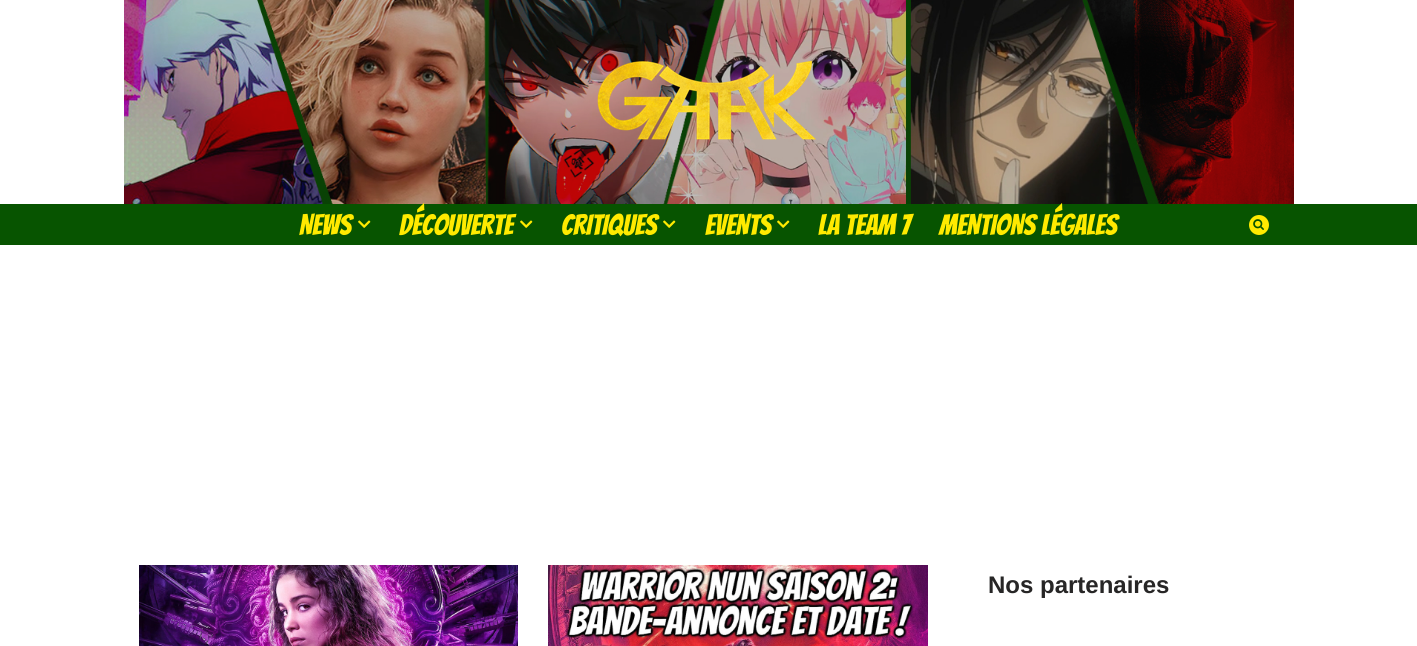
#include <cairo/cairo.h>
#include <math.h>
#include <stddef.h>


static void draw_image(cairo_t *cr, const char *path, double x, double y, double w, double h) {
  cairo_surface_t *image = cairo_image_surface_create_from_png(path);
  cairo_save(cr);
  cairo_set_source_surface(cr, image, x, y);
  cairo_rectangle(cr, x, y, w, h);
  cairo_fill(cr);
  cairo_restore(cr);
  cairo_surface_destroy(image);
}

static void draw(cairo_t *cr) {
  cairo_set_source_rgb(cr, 1, 1, 1);
  cairo_paint(cr);
  draw_image(cr, "images/1.png", 124, 0, 1170, 204);
  draw_image(cr, "images/2.png", 597, 60, 219, 80);
  cairo_set_source_rgb(cr, 7 / 255.0, 84 / 255.0, 0);
  cairo_rectangle(cr, 0, 204, 1417, 41);
  cairo_fill(cr);
  draw_image(cr, "images/3.png", 358, 220, 13, 8);
  draw_image(cr, "images/3.png", 520, 220, 13, 8);
  draw_image(cr, "images/3.png", 663, 220, 13, 8);
  draw_image(cr, "images/3.png", 777, 220, 13, 8);
  draw_image(cr, "images/4.png", 1249, 215, 20, 20);
  draw_image(cr, "images/5.png", 139, 565, 379, 81);
  draw_image(cr, "images/6.png", 548, 565, 380, 81);
  cairo_select_font_face(cr, "Bangers", CAIRO_FONT_SLANT_NORMAL, CAIRO_FONT_WEIGHT_NORMAL);
  cairo_set_font_size(cr, 28.75);
  cairo_set_source_rgb(cr, 1, 234 / 255.0, 0);
  cairo_move_to(cr, 299, 235);
  cairo_show_text(cr, "NEWS");
  cairo_move_to(cr, 399, 235);
  cairo_show_text(cr, "DÉCOUVERTE");
  cairo_move_to(cr, 561, 235);
  cairo_show_text(cr, "CRITIQUES");
  cairo_move_to(cr, 705, 235);
  cairo_show_text(cr, "EVENTS");
  cairo_move_to(cr, 818, 235);
  cairo_show_text(cr, "LA TEAM 7");
  cairo_move_to(cr, 939, 235);
  cairo_show_text(cr, "MENTIONS LÉGALES");
  cairo_select_font_face(cr, "Liberation Sans", CAIRO_FONT_SLANT_NORMAL, CAIRO_FONT_WEIGHT_BOLD);
  cairo_set_font_size(cr, 24);
  cairo_set_source_rgb(cr, 39 / 255.0, 38 / 255.0, 38 / 255.0);
  cairo_move_to(cr, 988, 593);
  cairo_show_text(cr, "Nos partenaires");
}

int main(void) {
  cairo_surface_t *surface = cairo_image_surface_create(CAIRO_FORMAT_RGB24, 1417, 646);
  cairo_t *cr = cairo_create(surface);
  cairo_font_options_t *options = cairo_font_options_create();
  cairo_font_options_set_hint_metrics(options, CAIRO_HINT_METRICS_OFF);
  cairo_font_options_set_hint_style(options, CAIRO_HINT_STYLE_NONE);
  cairo_set_font_options(cr, options);
  cairo_set_miter_limit(cr, 4);
  draw(cr);
  cairo_surface_write_to_png(surface, "out.png");
  cairo_font_options_destroy(options);
  cairo_destroy(cr);
  cairo_surface_destroy(surface);
  return 0;
}
